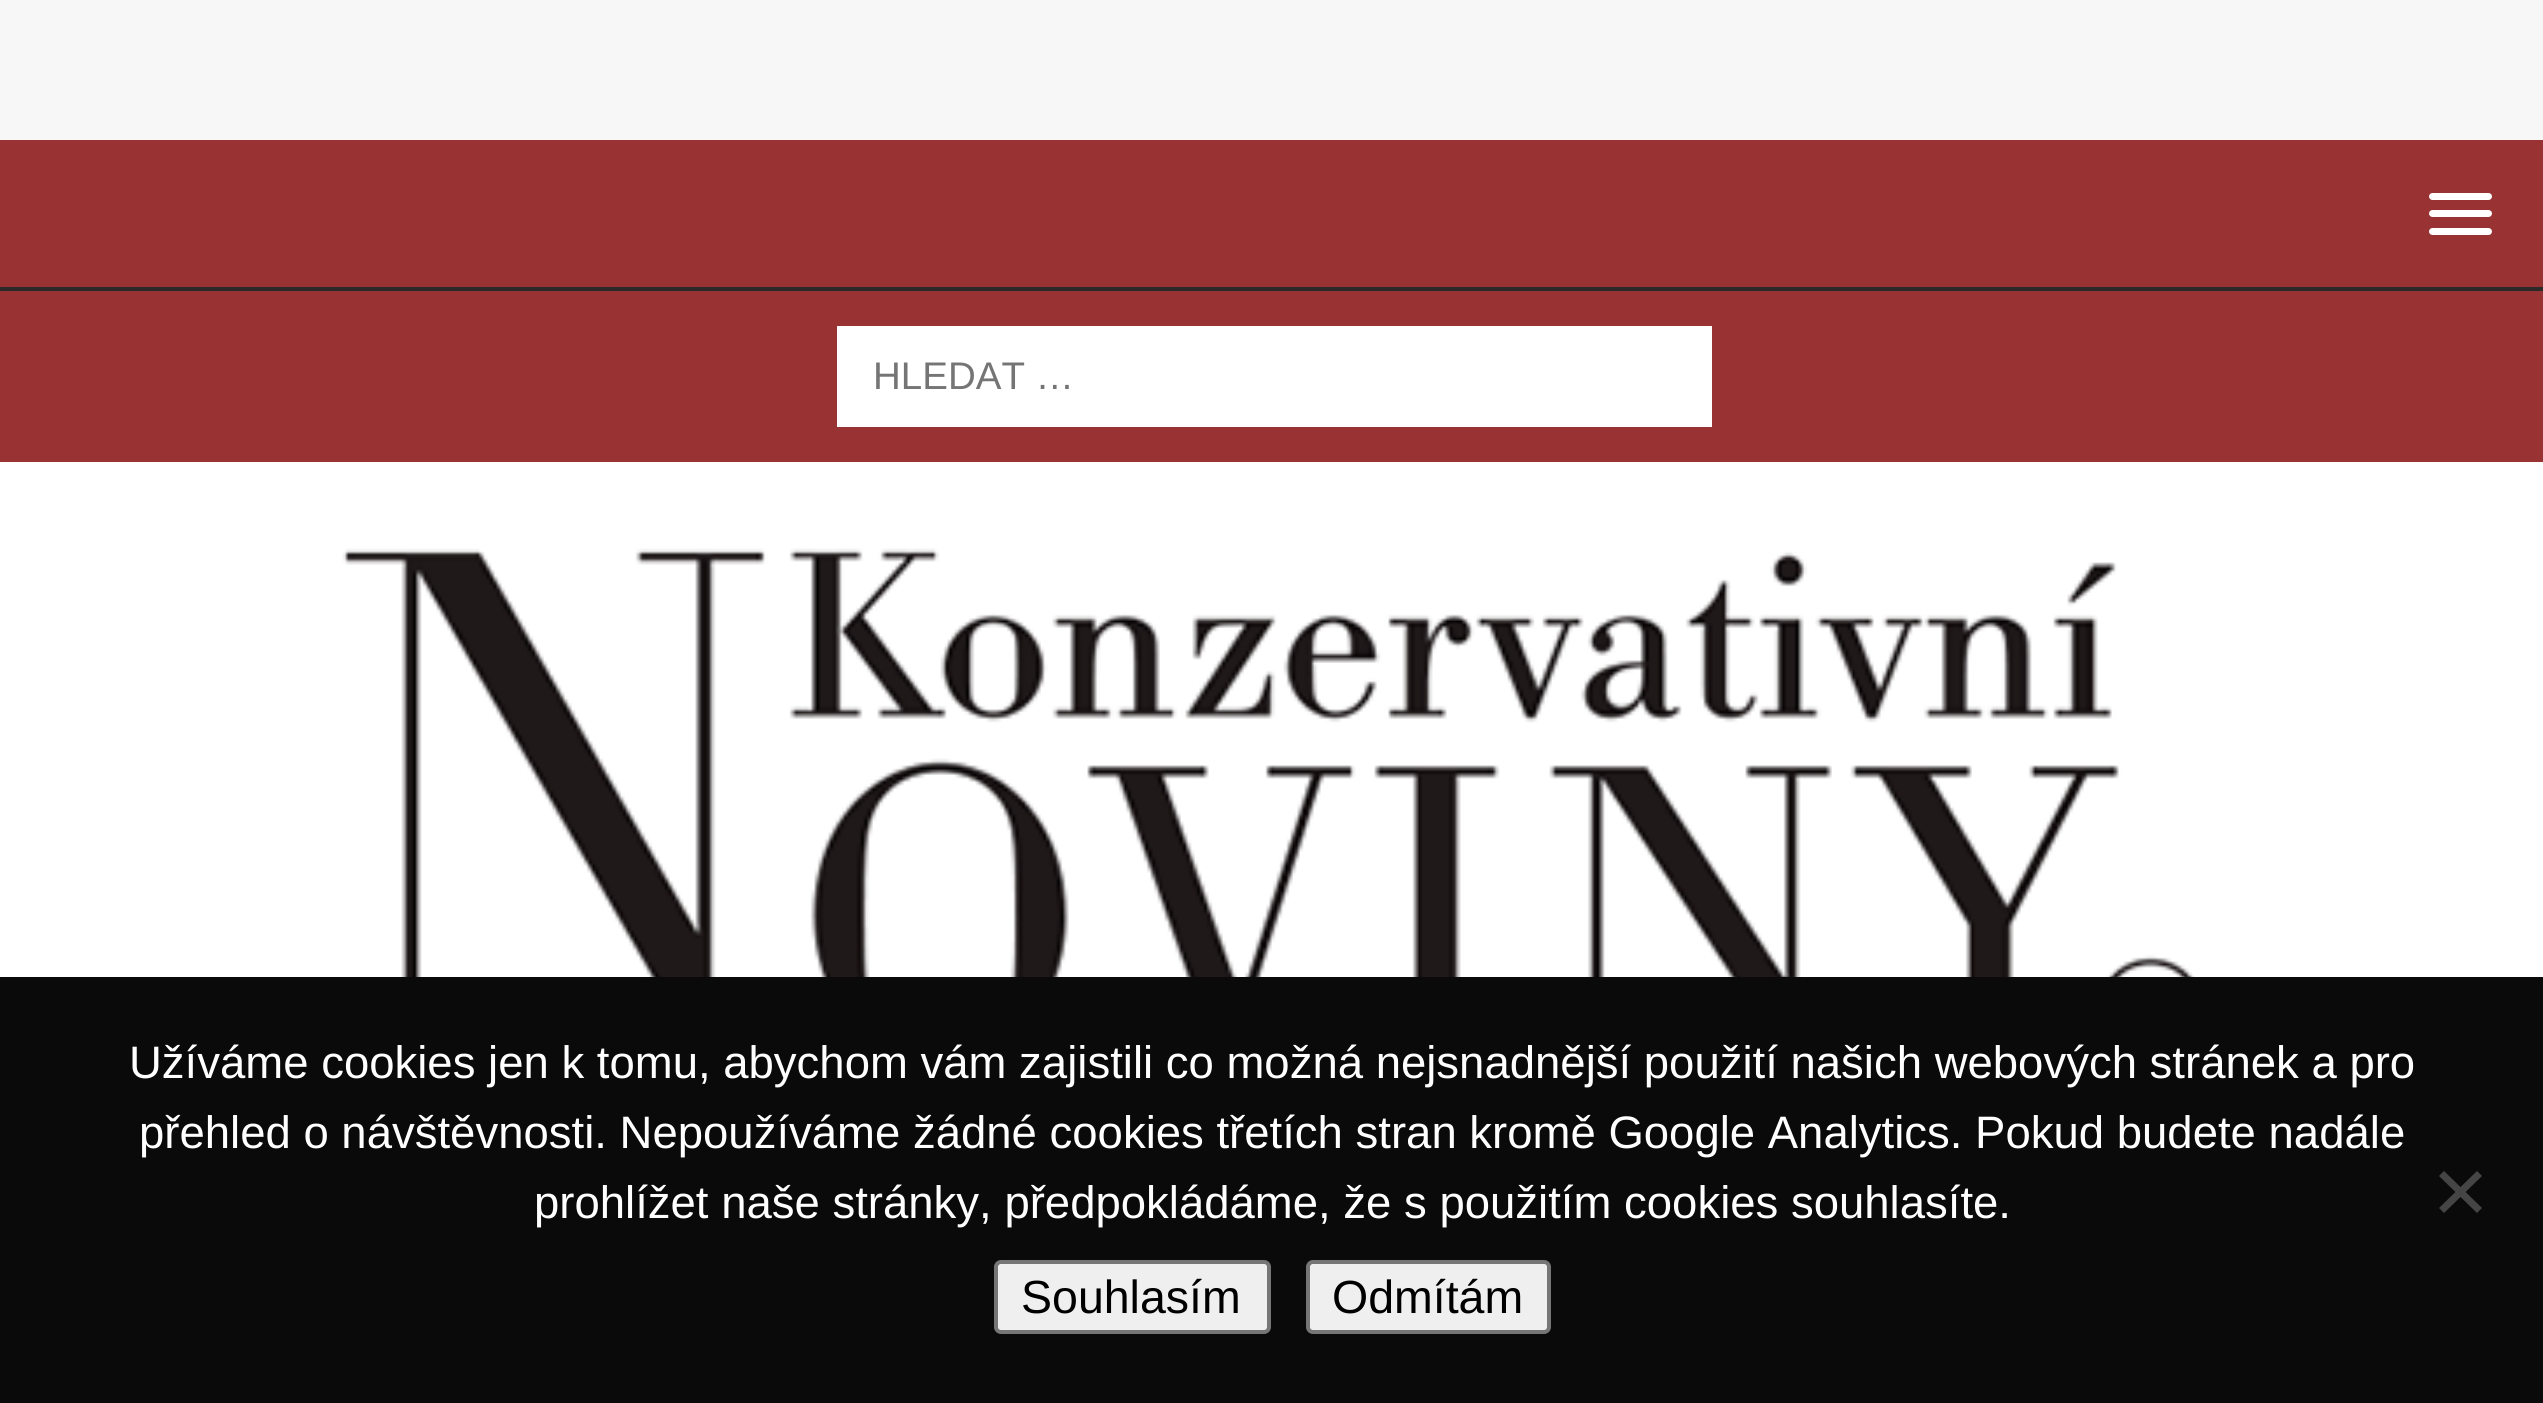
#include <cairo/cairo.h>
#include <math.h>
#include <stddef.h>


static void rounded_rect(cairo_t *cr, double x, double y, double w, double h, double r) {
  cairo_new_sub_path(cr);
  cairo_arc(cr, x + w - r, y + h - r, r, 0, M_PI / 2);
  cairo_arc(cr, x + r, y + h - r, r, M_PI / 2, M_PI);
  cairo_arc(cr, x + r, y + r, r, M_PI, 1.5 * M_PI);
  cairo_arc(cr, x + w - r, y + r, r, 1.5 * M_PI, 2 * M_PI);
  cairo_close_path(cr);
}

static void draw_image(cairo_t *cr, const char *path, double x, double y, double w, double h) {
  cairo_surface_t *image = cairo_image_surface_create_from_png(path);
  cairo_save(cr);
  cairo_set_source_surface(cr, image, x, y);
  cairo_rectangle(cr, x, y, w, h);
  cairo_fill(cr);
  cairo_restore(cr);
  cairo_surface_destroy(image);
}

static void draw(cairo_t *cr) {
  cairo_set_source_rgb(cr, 247 / 255.0, 247 / 255.0, 247 / 255.0);
  cairo_paint(cr);
  cairo_set_source_rgb(cr, 153 / 255.0, 51 / 255.0, 51 / 255.0);
  cairo_rectangle(cr, 0, 140, 2543, 147);
  cairo_fill(cr);
  cairo_set_source_rgb(cr, 42 / 255.0, 42 / 255.0, 42 / 255.0);
  cairo_rectangle(cr, 0, 287, 2543, 4);
  cairo_fill(cr);
  cairo_set_source_rgb(cr, 1, 1, 1);
  rounded_rect(cr, 2429, 193, 63, 7, 3.5);
  cairo_fill(cr);
  rounded_rect(cr, 2429, 210, 63, 7, 3.5);
  cairo_fill(cr);
  rounded_rect(cr, 2429, 228, 63, 7, 3.5);
  cairo_fill(cr);
  cairo_set_source_rgb(cr, 153 / 255.0, 51 / 255.0, 51 / 255.0);
  cairo_rectangle(cr, 0, 291, 2543, 171);
  cairo_fill(cr);
  cairo_set_source_rgb(cr, 1, 1, 1);
  cairo_rectangle(cr, 837, 326, 875, 101);
  cairo_fill(cr);
  cairo_rectangle(cr, 0, 462, 2543, 515);
  cairo_fill(cr);
  draw_image(cr, "images/1.png", 342, 548, 1864, 429);
  cairo_set_source_rgb(cr, 10 / 255.0, 10 / 255.0, 10 / 255.0);
  cairo_rectangle(cr, 0, 977, 2543, 426);
  cairo_fill(cr);
  cairo_set_source_rgb(cr, 69 / 255.0, 69 / 255.0, 69 / 255.0);
  cairo_new_path(cr);
  cairo_move_to(cr, 2477, 1171);
  cairo_line_to(cr, 2482, 1176);
  cairo_line_to(cr, 2444, 1213);
  cairo_line_to(cr, 2439, 1208);
  cairo_close_path(cr);
  cairo_fill(cr);
  cairo_new_path(cr);
  cairo_move_to(cr, 2439, 1176);
  cairo_line_to(cr, 2444, 1171);
  cairo_line_to(cr, 2482, 1208);
  cairo_line_to(cr, 2477, 1213);
  cairo_close_path(cr);
  cairo_fill(cr);
  cairo_set_source_rgb(cr, 239 / 255.0, 239 / 255.0, 239 / 255.0);
  rounded_rect(cr, 996, 1262, 273, 70, 5);
  cairo_fill_preserve(cr);
  cairo_set_source_rgb(cr, 118 / 255.0, 118 / 255.0, 118 / 255.0);
  cairo_set_line_width(cr, 4);
  cairo_stroke(cr);
  cairo_set_source_rgb(cr, 239 / 255.0, 239 / 255.0, 239 / 255.0);
  rounded_rect(cr, 1308, 1262, 241, 70, 5);
  cairo_fill_preserve(cr);
  cairo_set_source_rgb(cr, 118 / 255.0, 118 / 255.0, 118 / 255.0);
  cairo_stroke(cr);
  cairo_select_font_face(cr, "Liberation Sans", CAIRO_FONT_SLANT_NORMAL, CAIRO_FONT_WEIGHT_NORMAL);
  cairo_set_font_size(cr, 38.5);
  cairo_set_source_rgb(cr, 117 / 255.0, 117 / 255.0, 117 / 255.0);
  cairo_move_to(cr, 873, 389);
  cairo_show_text(cr, "HLEDAT …");
  cairo_set_font_size(cr, 45.5);
  cairo_set_source_rgb(cr, 1, 1, 1);
  cairo_move_to(cr, 129, 1078);
  cairo_show_text(cr, "Užíváme cookies jen k tomu, abychom vám zajistili co možná nejsnadnější použití našich webových stránek a pro");
  cairo_move_to(cr, 139, 1148);
  cairo_show_text(cr, "přehled o návštěvnosti. Nepoužíváme žádné cookies třetích stran kromě Google Analytics. Pokud budete nadále");
  cairo_move_to(cr, 534, 1218);
  cairo_show_text(cr, "prohlížet naše stránky, předpokládáme, že s použitím cookies souhlasíte.");
  cairo_set_font_size(cr, 46.5);
  cairo_set_source_rgb(cr, 0, 0, 0);
  cairo_move_to(cr, 1021, 1313);
  cairo_show_text(cr, "Souhlasím");
  cairo_move_to(cr, 1332, 1313);
  cairo_show_text(cr, "Odmítám");
}

int main(void) {
  cairo_surface_t *surface = cairo_image_surface_create(CAIRO_FORMAT_RGB24, 2543, 1403);
  cairo_t *cr = cairo_create(surface);
  cairo_font_options_t *options = cairo_font_options_create();
  cairo_font_options_set_hint_metrics(options, CAIRO_HINT_METRICS_OFF);
  cairo_font_options_set_hint_style(options, CAIRO_HINT_STYLE_NONE);
  cairo_set_font_options(cr, options);
  cairo_set_miter_limit(cr, 4);
  draw(cr);
  cairo_surface_write_to_png(surface, "out.png");
  cairo_font_options_destroy(options);
  cairo_destroy(cr);
  cairo_surface_destroy(surface);
  return 0;
}
